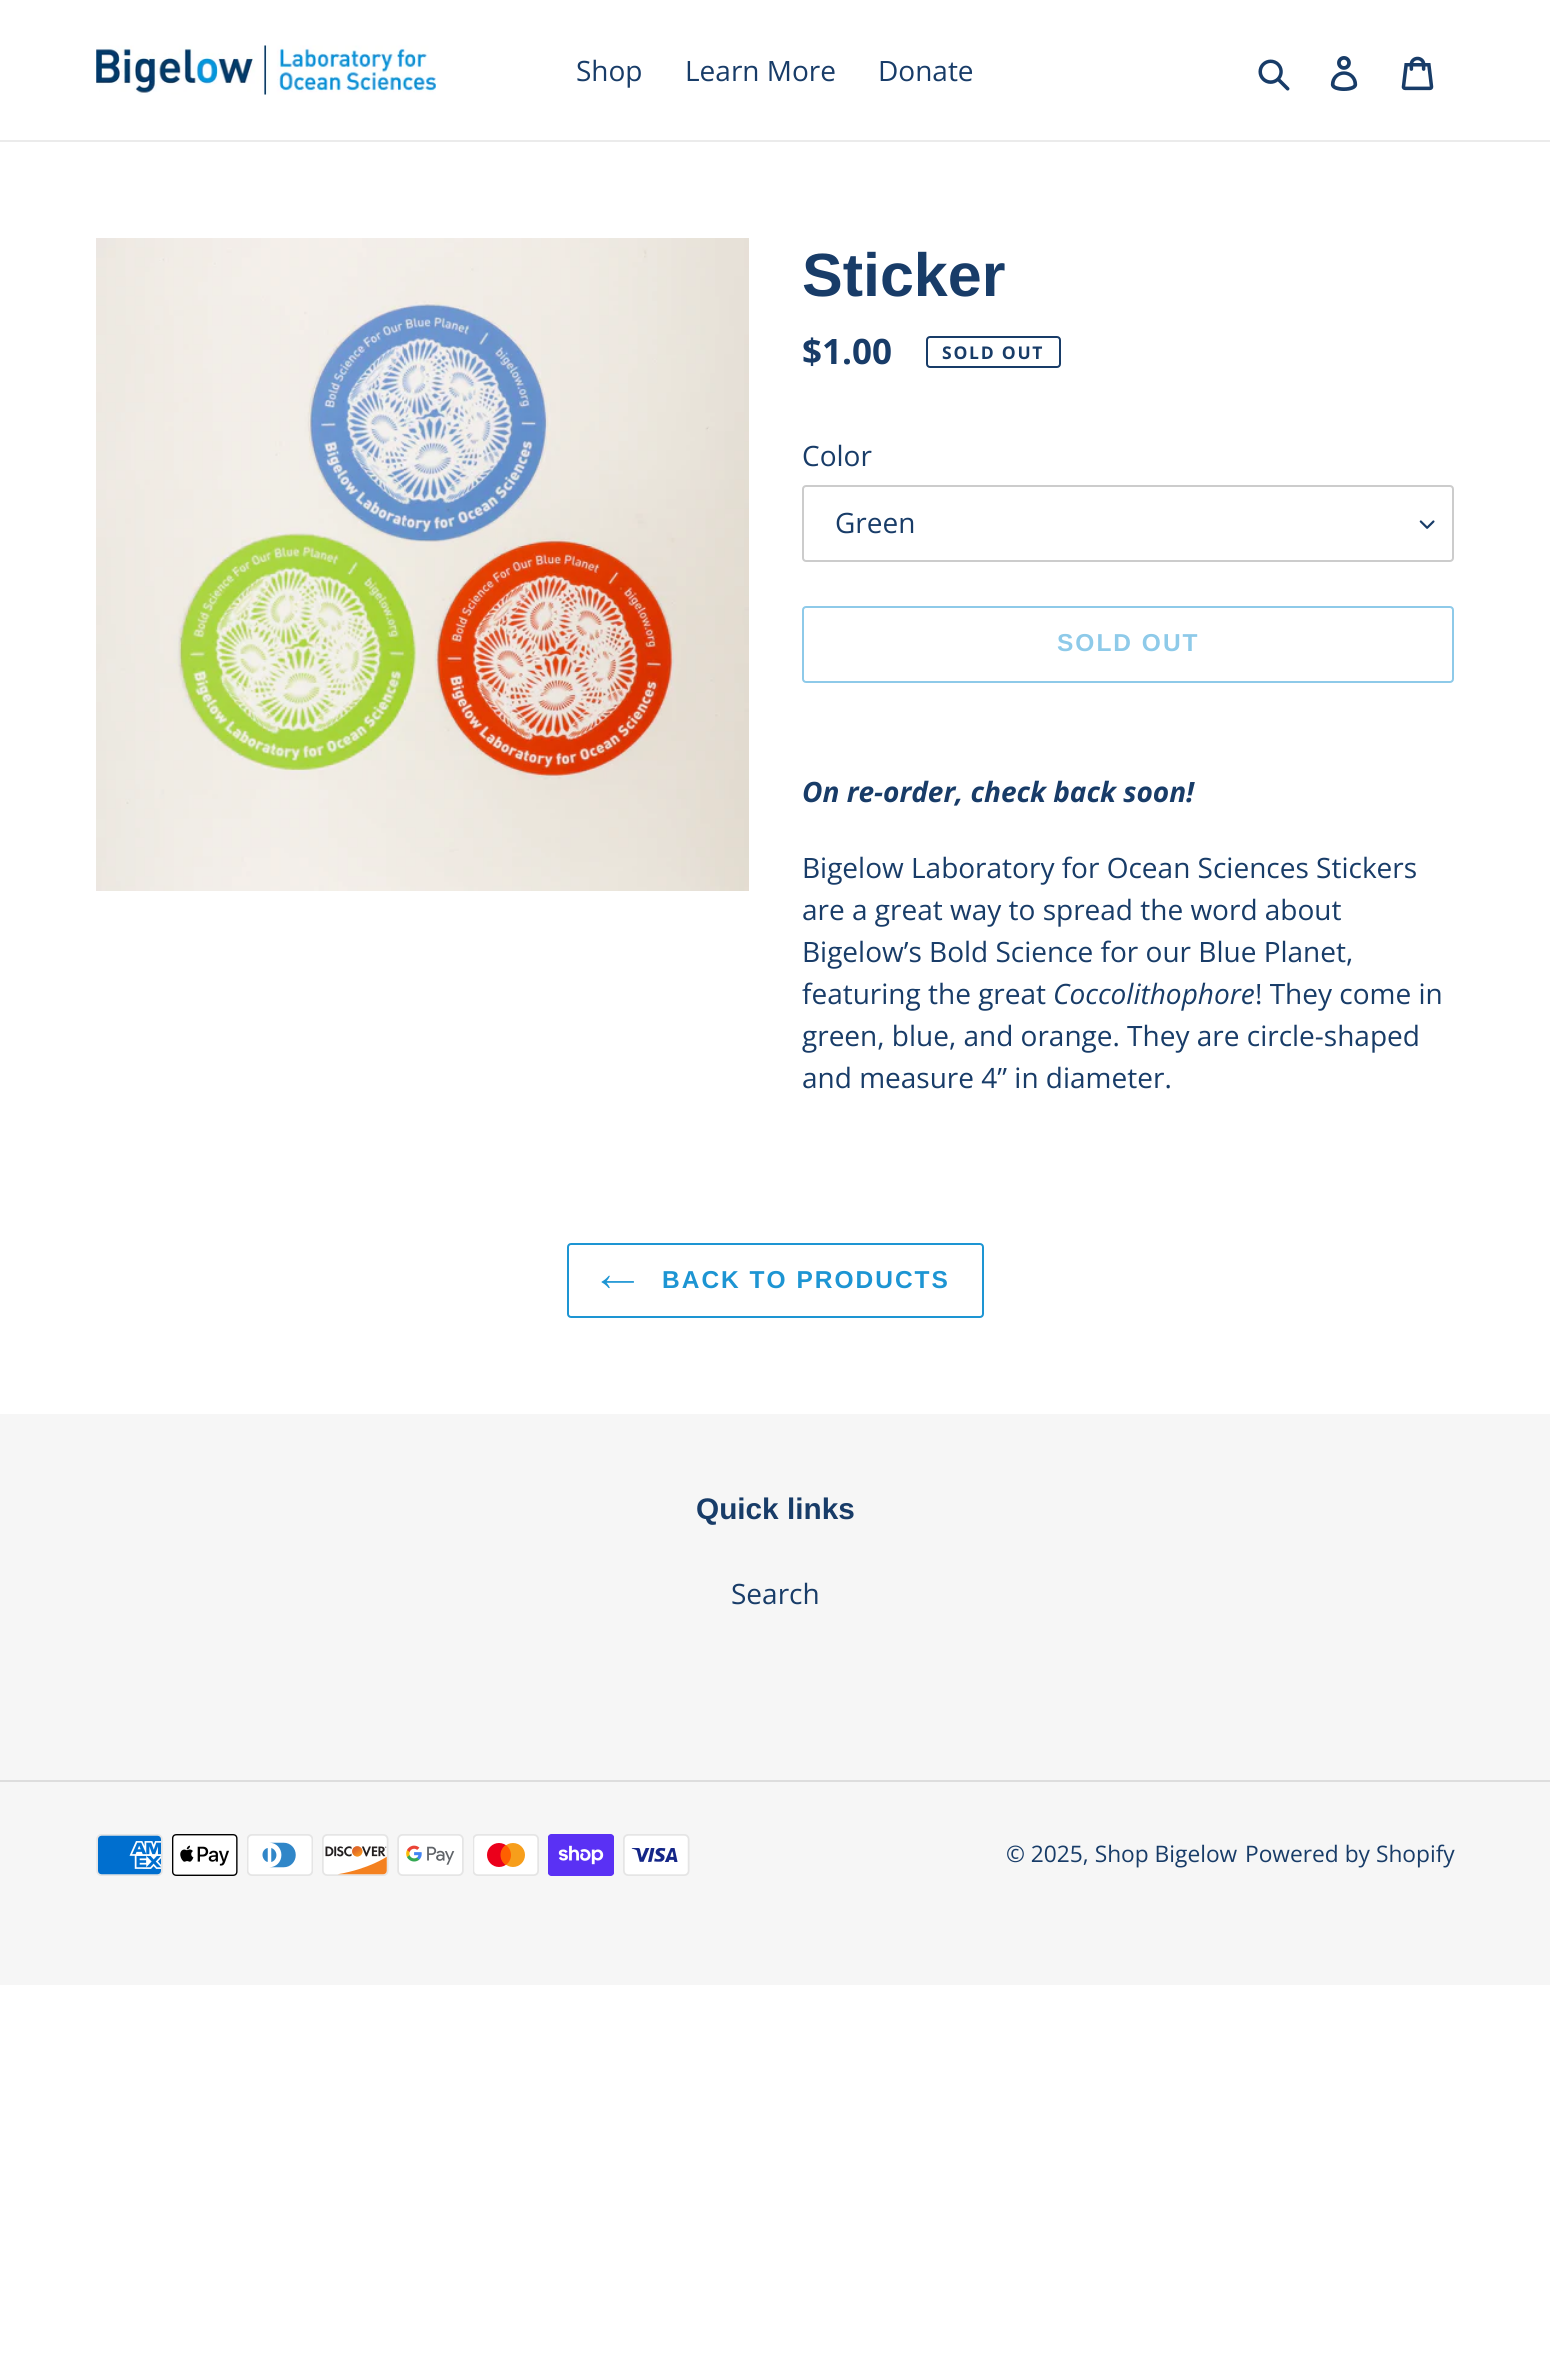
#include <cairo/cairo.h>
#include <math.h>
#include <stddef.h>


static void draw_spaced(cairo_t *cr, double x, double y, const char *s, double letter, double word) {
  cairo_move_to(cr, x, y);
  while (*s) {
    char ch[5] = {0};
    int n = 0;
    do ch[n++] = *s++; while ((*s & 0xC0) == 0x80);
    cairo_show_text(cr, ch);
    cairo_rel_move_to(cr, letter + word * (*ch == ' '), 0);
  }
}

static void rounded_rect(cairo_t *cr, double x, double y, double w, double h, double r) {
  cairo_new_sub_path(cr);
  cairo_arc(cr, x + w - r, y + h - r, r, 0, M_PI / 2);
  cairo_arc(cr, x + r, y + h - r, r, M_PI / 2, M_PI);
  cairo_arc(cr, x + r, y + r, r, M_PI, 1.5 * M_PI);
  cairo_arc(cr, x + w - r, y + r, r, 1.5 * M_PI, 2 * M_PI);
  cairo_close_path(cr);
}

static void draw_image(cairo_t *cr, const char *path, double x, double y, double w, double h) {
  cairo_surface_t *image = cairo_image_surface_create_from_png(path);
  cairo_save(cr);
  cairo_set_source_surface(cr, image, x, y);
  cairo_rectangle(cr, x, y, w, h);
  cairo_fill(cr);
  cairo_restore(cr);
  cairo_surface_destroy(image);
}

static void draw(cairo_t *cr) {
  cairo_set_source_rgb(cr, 1, 1, 1);
  cairo_paint(cr);
  cairo_set_source_rgb(cr, 235 / 255.0, 235 / 255.0, 235 / 255.0);
  cairo_rectangle(cr, 0, 140, 1550, 2);
  cairo_fill(cr);
  draw_image(cr, "images/1.png", 96, 45, 340, 50);
  draw_image(cr, "images/2.png", 1258, 59, 32, 32);
  draw_image(cr, "images/3.png", 1330, 56, 28, 35);
  draw_image(cr, "images/4.png", 1401, 56, 33, 35);
  draw_image(cr, "images/5.png", 96, 238, 653, 653);
  rounded_rect(cr, 927, 337, 133, 30, 3);
  cairo_set_source_rgb(cr, 24 / 255.0, 60 / 255.0, 104 / 255.0);
  cairo_stroke(cr);
  draw_image(cr, "images/6.png", 1419, 520, 16, 9);
  rounded_rect(cr, 803, 486, 650, 75, 3);
  cairo_set_source_rgb(cr, 204 / 255.0, 204 / 255.0, 204 / 255.0);
  cairo_stroke(cr);
  rounded_rect(cr, 803, 607, 650, 75, 3);
  cairo_set_source_rgb(cr, 142 / 255.0, 202 / 255.0, 233 / 255.0);
  cairo_stroke(cr);
  rounded_rect(cr, 568, 1244, 415, 73, 3);
  cairo_set_source_rgb(cr, 29 / 255.0, 149 / 255.0, 211 / 255.0);
  cairo_stroke(cr);
  draw_image(cr, "images/7.png", 601, 1275, 33, 14);
  cairo_set_source_rgb(cr, 246 / 255.0, 246 / 255.0, 246 / 255.0);
  cairo_rectangle(cr, 0, 1414, 1550, 571);
  cairo_fill(cr);
  cairo_set_source_rgb(cr, 221 / 255.0, 221 / 255.0, 221 / 255.0);
  cairo_rectangle(cr, 0, 1780, 1550, 2);
  cairo_fill(cr);
  draw_image(cr, "images/8.png", 96, 1834, 67, 42);
  draw_image(cr, "images/9.png", 172, 1834, 66, 42);
  draw_image(cr, "images/10.png", 247, 1834, 66, 42);
  draw_image(cr, "images/11.png", 322, 1834, 67, 42);
  draw_image(cr, "images/12.png", 397, 1834, 67, 42);
  draw_image(cr, "images/13.png", 473, 1834, 66, 42);
  draw_image(cr, "images/14.png", 548, 1834, 66, 42);
  draw_image(cr, "images/15.png", 623, 1834, 67, 42);
  cairo_select_font_face(cr, "Open Sans", CAIRO_FONT_SLANT_NORMAL, CAIRO_FONT_WEIGHT_NORMAL);
  cairo_set_font_size(cr, 28);
  cairo_set_source_rgb(cr, 24 / 255.0, 60 / 255.0, 104 / 255.0);
  cairo_move_to(cr, 576, 81);
  cairo_show_text(cr, "Shop");
  cairo_move_to(cr, 685, 81);
  cairo_show_text(cr, "Learn More");
  cairo_move_to(cr, 878, 81);
  cairo_show_text(cr, "Donate");
  cairo_select_font_face(cr, "Liberation Sans", CAIRO_FONT_SLANT_NORMAL, CAIRO_FONT_WEIGHT_BOLD);
  cairo_set_font_size(cr, 61);
  cairo_move_to(cr, 802, 296);
  cairo_show_text(cr, "Sticker");
  cairo_select_font_face(cr, "Open Sans", CAIRO_FONT_SLANT_NORMAL, CAIRO_FONT_WEIGHT_BOLD);
  cairo_set_font_size(cr, 35);
  cairo_move_to(cr, 802, 364);
  cairo_show_text(cr, "$1.00");
  cairo_set_font_size(cr, 17.5);
  draw_spaced(cr, 942, 359, "SOLD OUT", 1.75, 0);
  cairo_select_font_face(cr, "Open Sans", CAIRO_FONT_SLANT_NORMAL, CAIRO_FONT_WEIGHT_NORMAL);
  cairo_set_font_size(cr, 28);
  cairo_move_to(cr, 802, 466);
  cairo_show_text(cr, "Color");
  cairo_move_to(cr, 835, 533);
  cairo_show_text(cr, "Green");
  cairo_select_font_face(cr, "Liberation Sans", CAIRO_FONT_SLANT_NORMAL, CAIRO_FONT_WEIGHT_BOLD);
  cairo_set_font_size(cr, 24.5);
  cairo_set_source_rgb(cr, 142 / 255.0, 202 / 255.0, 233 / 255.0);
  draw_spaced(cr, 1057, 651, "SOLD OUT", 2, 0);
  cairo_select_font_face(cr, "Open Sans", CAIRO_FONT_SLANT_ITALIC, CAIRO_FONT_WEIGHT_BOLD);
  cairo_set_font_size(cr, 28);
  cairo_set_source_rgb(cr, 24 / 255.0, 60 / 255.0, 104 / 255.0);
  cairo_move_to(cr, 802, 802);
  cairo_show_text(cr, "On re-order, check back soon!");
  cairo_select_font_face(cr, "Open Sans", CAIRO_FONT_SLANT_NORMAL, CAIRO_FONT_WEIGHT_NORMAL);
  cairo_move_to(cr, 802, 878);
  cairo_show_text(cr, "Bigelow Laboratory for Ocean Sciences Stickers");
  cairo_move_to(cr, 802, 920);
  cairo_show_text(cr, "are a great way to spread the word about");
  cairo_move_to(cr, 802, 962);
  cairo_show_text(cr, "Bigelow’s Bold Science for our Blue Planet,");
  cairo_move_to(cr, 802, 1004);
  cairo_show_text(cr, "featuring the great");
  cairo_select_font_face(cr, "Open Sans", CAIRO_FONT_SLANT_ITALIC, CAIRO_FONT_WEIGHT_NORMAL);
  cairo_move_to(cr, 1053, 1004);
  cairo_show_text(cr, "Coccolithophore");
  cairo_select_font_face(cr, "Open Sans", CAIRO_FONT_SLANT_NORMAL, CAIRO_FONT_WEIGHT_NORMAL);
  cairo_move_to(cr, 1255, 1004);
  cairo_show_text(cr, "! They come in");
  cairo_move_to(cr, 802, 1046);
  cairo_show_text(cr, "green, blue, and orange. They are circle-shaped");
  cairo_move_to(cr, 802, 1088);
  cairo_show_text(cr, "and measure 4” in diameter.");
  cairo_select_font_face(cr, "Liberation Sans", CAIRO_FONT_SLANT_NORMAL, CAIRO_FONT_WEIGHT_BOLD);
  cairo_set_font_size(cr, 24.5);
  cairo_set_source_rgb(cr, 29 / 255.0, 149 / 255.0, 211 / 255.0);
  draw_spaced(cr, 662, 1288, "BACK TO PRODUCTS", 2, 0);
  cairo_set_font_size(cr, 29.75);
  cairo_set_source_rgb(cr, 24 / 255.0, 60 / 255.0, 104 / 255.0);
  cairo_move_to(cr, 696, 1519);
  cairo_show_text(cr, "Quick links");
  cairo_select_font_face(cr, "Open Sans", CAIRO_FONT_SLANT_NORMAL, CAIRO_FONT_WEIGHT_NORMAL);
  cairo_set_font_size(cr, 28);
  cairo_move_to(cr, 731, 1604);
  cairo_show_text(cr, "Search");
  cairo_set_font_size(cr, 22.75);
  cairo_move_to(cr, 1006, 1862);
  cairo_show_text(cr, "© 2025, Shop Bigelow");
  cairo_move_to(cr, 1245, 1862);
  cairo_show_text(cr, "Powered by Shopify");
}

int main(void) {
  cairo_surface_t *surface = cairo_image_surface_create(CAIRO_FORMAT_RGB24, 1550, 2367);
  cairo_t *cr = cairo_create(surface);
  cairo_font_options_t *options = cairo_font_options_create();
  cairo_font_options_set_hint_metrics(options, CAIRO_HINT_METRICS_OFF);
  cairo_font_options_set_hint_style(options, CAIRO_HINT_STYLE_NONE);
  cairo_set_font_options(cr, options);
  cairo_set_miter_limit(cr, 4);
  draw(cr);
  cairo_surface_write_to_png(surface, "out.png");
  cairo_font_options_destroy(options);
  cairo_destroy(cr);
  cairo_surface_destroy(surface);
  return 0;
}
